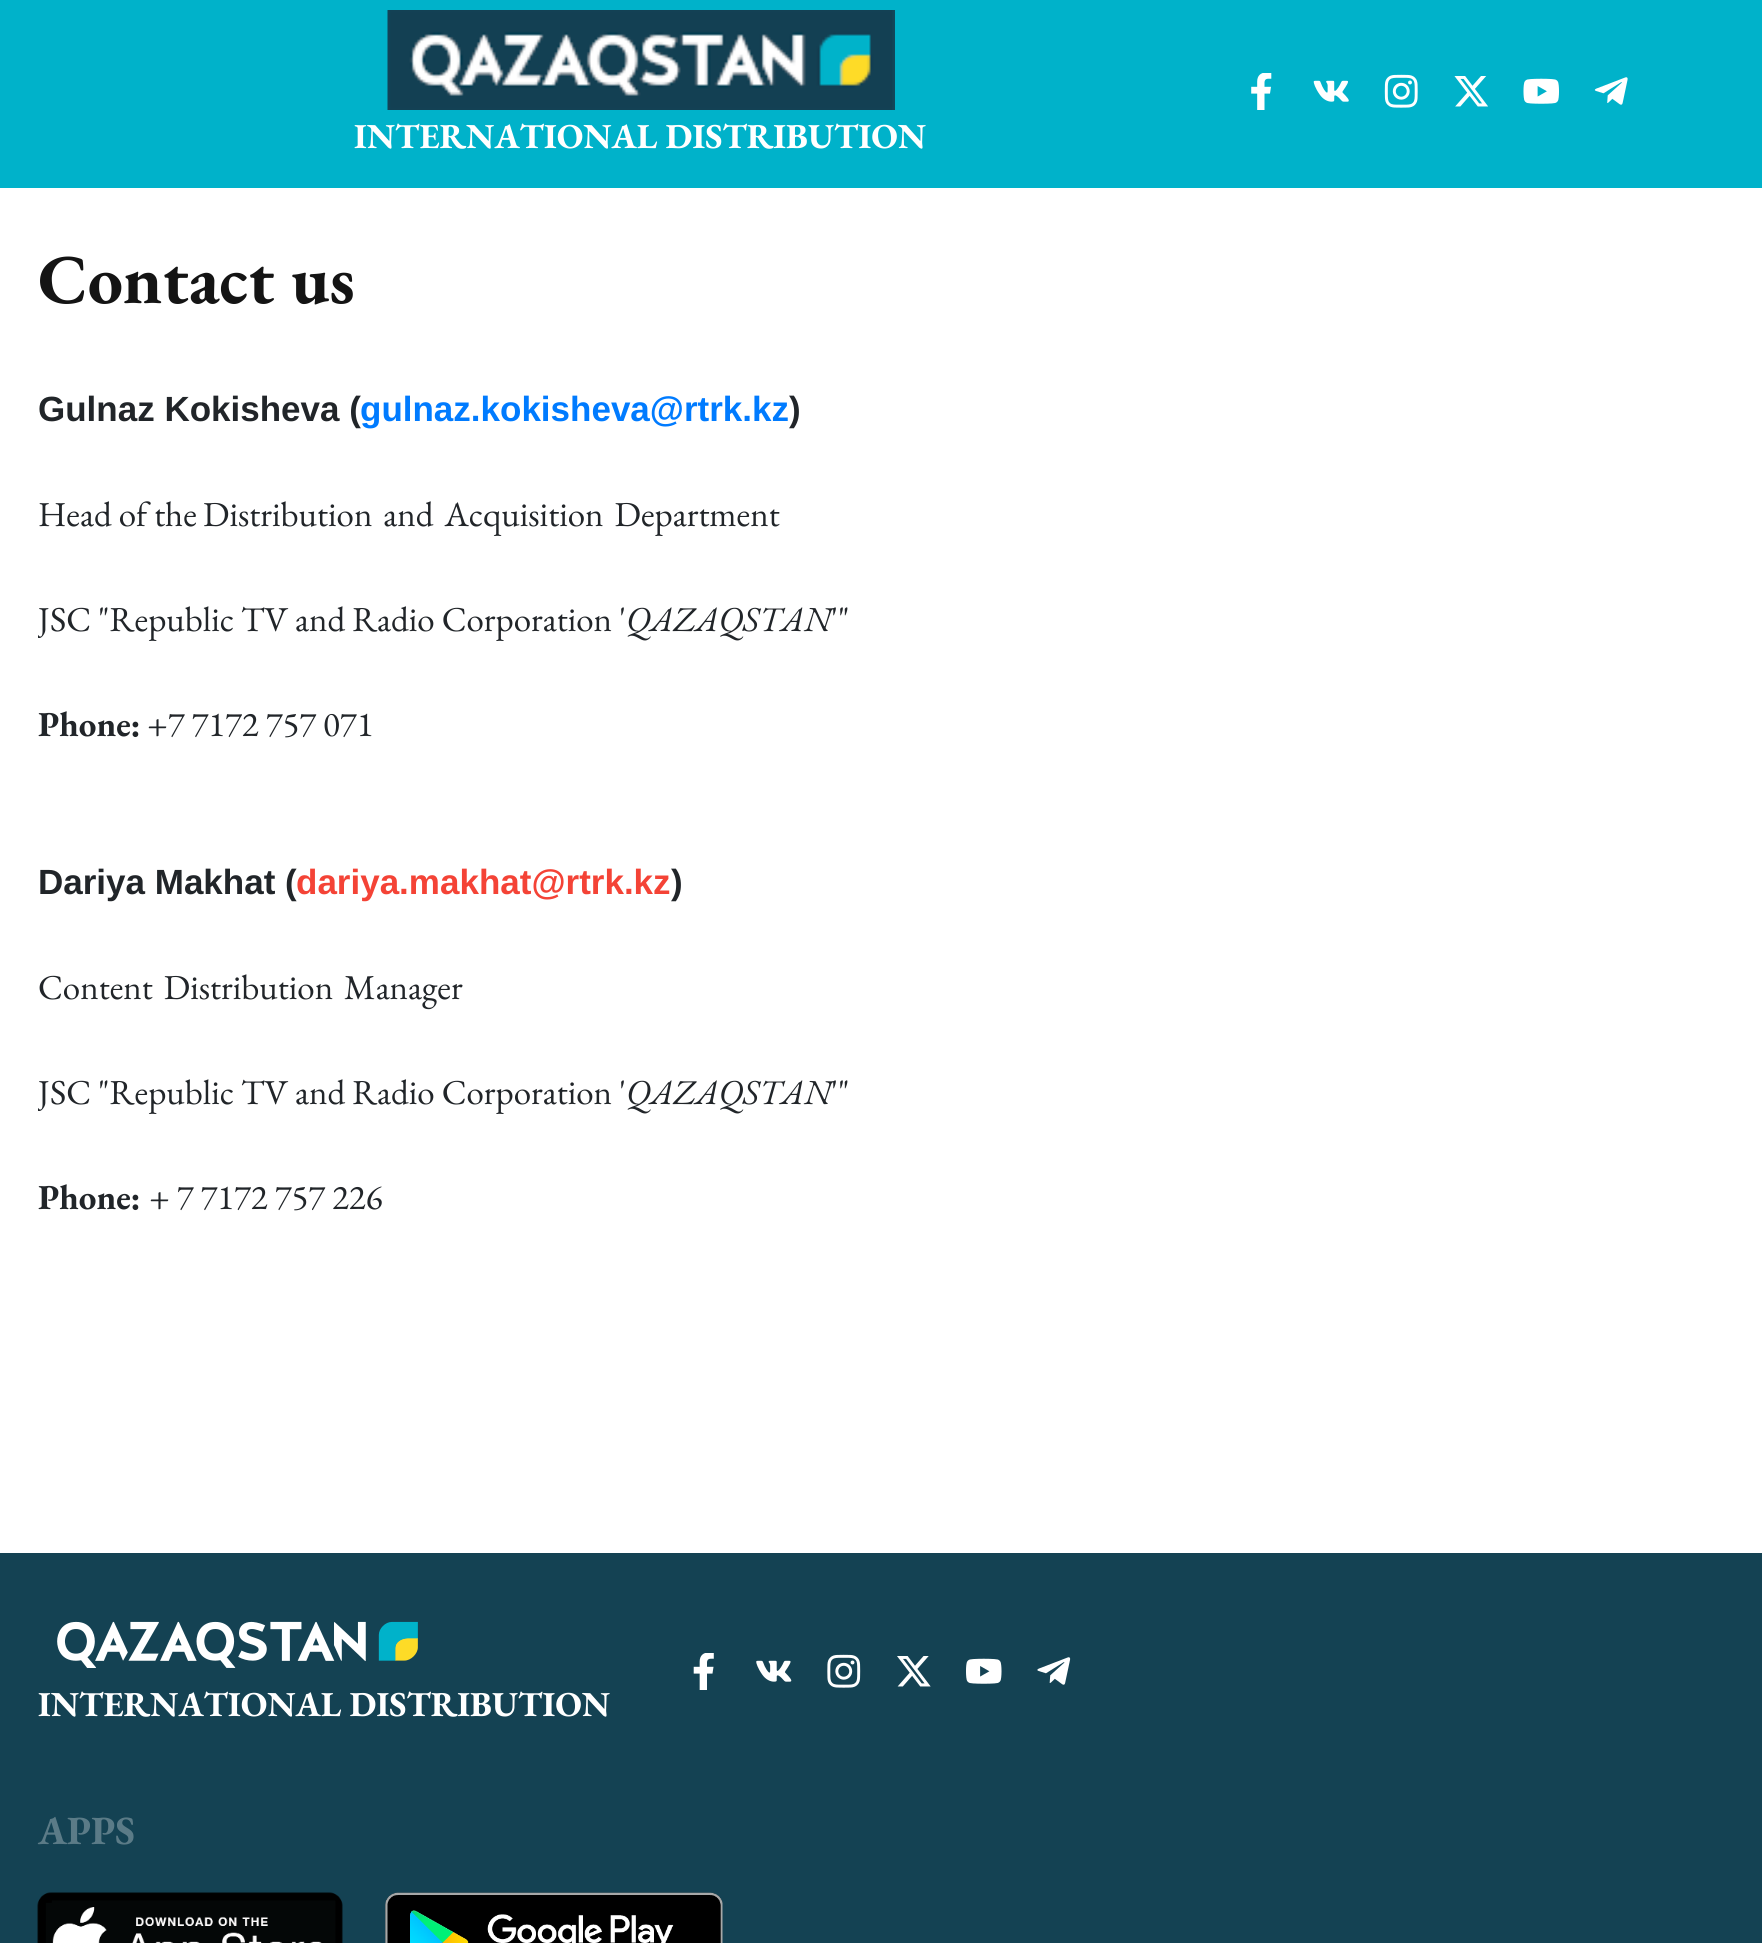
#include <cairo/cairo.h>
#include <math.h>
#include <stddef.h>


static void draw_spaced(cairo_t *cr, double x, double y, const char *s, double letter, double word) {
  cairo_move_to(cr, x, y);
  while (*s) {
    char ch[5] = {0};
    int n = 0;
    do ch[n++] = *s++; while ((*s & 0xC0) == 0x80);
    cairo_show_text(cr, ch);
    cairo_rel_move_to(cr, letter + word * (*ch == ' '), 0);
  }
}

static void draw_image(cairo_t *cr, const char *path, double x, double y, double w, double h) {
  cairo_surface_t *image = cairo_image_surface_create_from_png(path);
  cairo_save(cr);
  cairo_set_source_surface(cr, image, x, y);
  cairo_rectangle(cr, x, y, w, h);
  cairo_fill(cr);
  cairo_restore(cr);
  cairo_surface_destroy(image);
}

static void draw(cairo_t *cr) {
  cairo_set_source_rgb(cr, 1, 1, 1);
  cairo_paint(cr);
  cairo_set_source_rgb(cr, 0, 178 / 255.0, 202 / 255.0);
  cairo_rectangle(cr, 0, 0, 1762, 188);
  cairo_fill(cr);
  draw_image(cr, "images/1.png", 1251, 73, 21, 37);
  draw_image(cr, "images/2.png", 1313, 80, 36, 22);
  draw_image(cr, "images/3.png", 1384, 74, 34, 34);
  draw_image(cr, "images/4.png", 1454, 76, 34, 31);
  draw_image(cr, "images/5.png", 1523, 78, 36, 26);
  draw_image(cr, "images/6.png", 1594, 77, 34, 28);
  draw_image(cr, "images/7.png", 387, 10, 508, 100);
  cairo_set_source_rgb(cr, 20 / 255.0, 66 / 255.0, 83 / 255.0);
  cairo_rectangle(cr, 0, 1553, 1762, 390);
  cairo_fill(cr);
  draw_image(cr, "images/8.png", 693, 1653, 21, 37);
  draw_image(cr, "images/9.png", 756, 1660, 36, 22);
  draw_image(cr, "images/10.png", 827, 1654, 34, 34);
  draw_image(cr, "images/11.png", 897, 1656, 34, 31);
  draw_image(cr, "images/12.png", 966, 1658, 36, 26);
  draw_image(cr, "images/13.png", 1037, 1657, 34, 28);
  draw_image(cr, "images/14.png", 57, 1621, 361, 47);
  draw_image(cr, "images/15.png", 37, 1892, 306, 51);
  draw_image(cr, "images/16.png", 385, 1892, 338, 51);
  cairo_select_font_face(cr, "EB Garamond", CAIRO_FONT_SLANT_NORMAL, CAIRO_FONT_WEIGHT_BOLD);
  cairo_set_font_size(cr, 35);
  cairo_set_source_rgb(cr, 1, 1, 1);
  cairo_move_to(cr, 354, 148);
  cairo_show_text(cr, "INTERNATIONAL DISTRIBUTION");
  cairo_set_font_size(cr, 70);
  cairo_set_source_rgb(cr, 20 / 255.0, 20 / 255.0, 20 / 255.0);
  cairo_move_to(cr, 38, 303);
  cairo_show_text(cr, "Contact us");
  cairo_select_font_face(cr, "Liberation Sans", CAIRO_FONT_SLANT_NORMAL, CAIRO_FONT_WEIGHT_BOLD);
  cairo_set_font_size(cr, 35);
  cairo_set_source_rgb(cr, 33 / 255.0, 37 / 255.0, 41 / 255.0);
  cairo_move_to(cr, 38, 421);
  cairo_show_text(cr, "Gulnaz Kokisheva (");
  cairo_set_source_rgb(cr, 0, 123 / 255.0, 1);
  cairo_move_to(cr, 360, 421);
  cairo_show_text(cr, "gulnaz.kokisheva@rtrk.kz");
  cairo_set_source_rgb(cr, 33 / 255.0, 37 / 255.0, 41 / 255.0);
  cairo_move_to(cr, 789, 421);
  cairo_show_text(cr, ")");
  cairo_select_font_face(cr, "EB Garamond", CAIRO_FONT_SLANT_NORMAL, CAIRO_FONT_WEIGHT_NORMAL);
  cairo_move_to(cr, 38, 526);
  cairo_show_text(cr, "Head of the");
  draw_spaced(cr, 203, 526, "Distribution and Acquisition Department", 0, 4);
  cairo_save(cr);
  cairo_rectangle(cr, 38, 385, 1202, 998);
  cairo_clip(cr);
  cairo_move_to(cr, 38, 631);
  cairo_show_text(cr, "JSC \"Republic TV and Radio Corporation '");
  cairo_restore(cr);
  cairo_select_font_face(cr, "EB Garamond", CAIRO_FONT_SLANT_ITALIC, CAIRO_FONT_WEIGHT_NORMAL);
  cairo_move_to(cr, 626, 631);
  cairo_show_text(cr, "QAZAQSTAN");
  cairo_select_font_face(cr, "EB Garamond", CAIRO_FONT_SLANT_NORMAL, CAIRO_FONT_WEIGHT_NORMAL);
  cairo_move_to(cr, 831, 631);
  cairo_show_text(cr, "'\"");
  cairo_select_font_face(cr, "EB Garamond", CAIRO_FONT_SLANT_NORMAL, CAIRO_FONT_WEIGHT_BOLD);
  cairo_move_to(cr, 38, 736);
  cairo_show_text(cr, "Phone:");
  cairo_select_font_face(cr, "EB Garamond", CAIRO_FONT_SLANT_NORMAL, CAIRO_FONT_WEIGHT_NORMAL);
  cairo_move_to(cr, 147, 736);
  cairo_show_text(cr, "+7 7172 757 071");
  cairo_select_font_face(cr, "Liberation Sans", CAIRO_FONT_SLANT_NORMAL, CAIRO_FONT_WEIGHT_BOLD);
  cairo_move_to(cr, 38, 894);
  cairo_show_text(cr, "Dariya Makhat (");
  cairo_set_source_rgb(cr, 244 / 255.0, 67 / 255.0, 54 / 255.0);
  cairo_move_to(cr, 296, 894);
  cairo_show_text(cr, "dariya.makhat@rtrk.kz");
  cairo_set_source_rgb(cr, 33 / 255.0, 37 / 255.0, 41 / 255.0);
  cairo_move_to(cr, 671, 894);
  cairo_show_text(cr, ")");
  cairo_select_font_face(cr, "EB Garamond", CAIRO_FONT_SLANT_NORMAL, CAIRO_FONT_WEIGHT_NORMAL);
  draw_spaced(cr, 38, 999, "Content Distribution Manager", 0, 4);
  cairo_save(cr);
  cairo_rectangle(cr, 38, 385, 1202, 998);
  cairo_clip(cr);
  cairo_move_to(cr, 38, 1104);
  cairo_show_text(cr, "JSC \"Republic TV and Radio Corporation '");
  cairo_restore(cr);
  cairo_select_font_face(cr, "EB Garamond", CAIRO_FONT_SLANT_ITALIC, CAIRO_FONT_WEIGHT_NORMAL);
  cairo_move_to(cr, 626, 1104);
  cairo_show_text(cr, "QAZAQSTAN");
  cairo_select_font_face(cr, "EB Garamond", CAIRO_FONT_SLANT_NORMAL, CAIRO_FONT_WEIGHT_NORMAL);
  cairo_move_to(cr, 831, 1104);
  cairo_show_text(cr, "'\"");
  cairo_select_font_face(cr, "EB Garamond", CAIRO_FONT_SLANT_NORMAL, CAIRO_FONT_WEIGHT_BOLD);
  cairo_move_to(cr, 38, 1209);
  cairo_show_text(cr, "Phone:");
  cairo_select_font_face(cr, "EB Garamond", CAIRO_FONT_SLANT_NORMAL, CAIRO_FONT_WEIGHT_NORMAL);
  cairo_move_to(cr, 149, 1209);
  cairo_show_text(cr, "+ 7 7172 757 226");
  cairo_select_font_face(cr, "EB Garamond", CAIRO_FONT_SLANT_NORMAL, CAIRO_FONT_WEIGHT_BOLD);
  cairo_set_source_rgb(cr, 1, 1, 1);
  cairo_move_to(cr, 38, 1716);
  cairo_show_text(cr, "INTERNATIONAL DISTRIBUTION");
  cairo_set_font_size(cr, 40);
  cairo_set_source_rgb(cr, 91 / 255.0, 123 / 255.0, 135 / 255.0);
  cairo_move_to(cr, 38, 1844);
  cairo_show_text(cr, "APPS");
}

int main(void) {
  cairo_surface_t *surface = cairo_image_surface_create(CAIRO_FORMAT_RGB24, 1762, 1943);
  cairo_t *cr = cairo_create(surface);
  cairo_font_options_t *options = cairo_font_options_create();
  cairo_font_options_set_hint_metrics(options, CAIRO_HINT_METRICS_OFF);
  cairo_font_options_set_hint_style(options, CAIRO_HINT_STYLE_NONE);
  cairo_set_font_options(cr, options);
  cairo_set_miter_limit(cr, 4);
  draw(cr);
  cairo_surface_write_to_png(surface, "out.png");
  cairo_font_options_destroy(options);
  cairo_destroy(cr);
  cairo_surface_destroy(surface);
  return 0;
}
